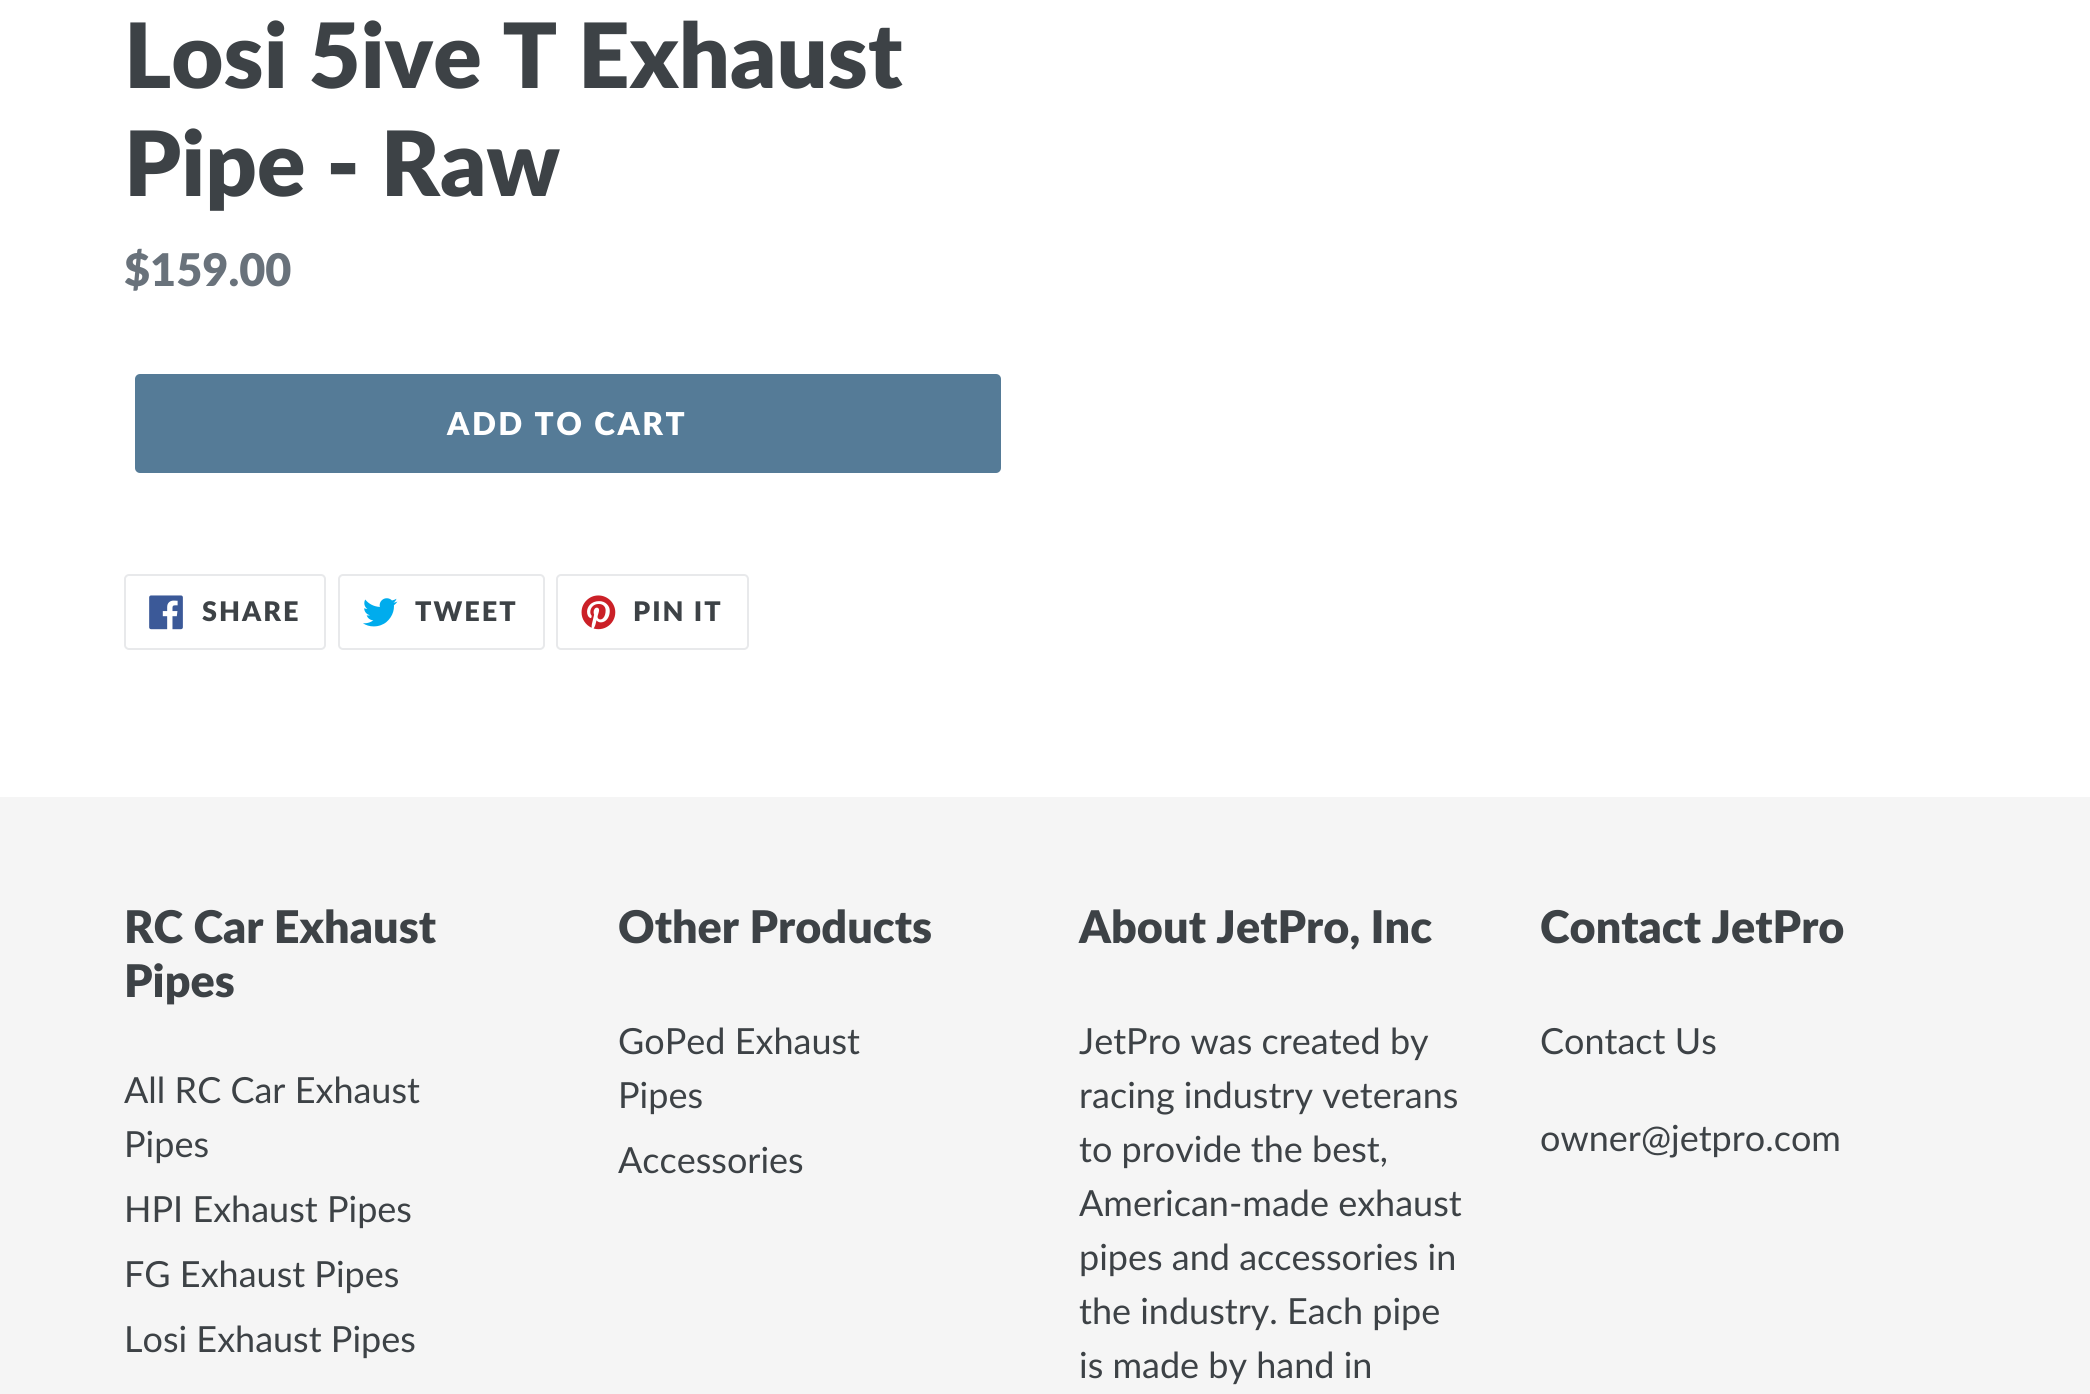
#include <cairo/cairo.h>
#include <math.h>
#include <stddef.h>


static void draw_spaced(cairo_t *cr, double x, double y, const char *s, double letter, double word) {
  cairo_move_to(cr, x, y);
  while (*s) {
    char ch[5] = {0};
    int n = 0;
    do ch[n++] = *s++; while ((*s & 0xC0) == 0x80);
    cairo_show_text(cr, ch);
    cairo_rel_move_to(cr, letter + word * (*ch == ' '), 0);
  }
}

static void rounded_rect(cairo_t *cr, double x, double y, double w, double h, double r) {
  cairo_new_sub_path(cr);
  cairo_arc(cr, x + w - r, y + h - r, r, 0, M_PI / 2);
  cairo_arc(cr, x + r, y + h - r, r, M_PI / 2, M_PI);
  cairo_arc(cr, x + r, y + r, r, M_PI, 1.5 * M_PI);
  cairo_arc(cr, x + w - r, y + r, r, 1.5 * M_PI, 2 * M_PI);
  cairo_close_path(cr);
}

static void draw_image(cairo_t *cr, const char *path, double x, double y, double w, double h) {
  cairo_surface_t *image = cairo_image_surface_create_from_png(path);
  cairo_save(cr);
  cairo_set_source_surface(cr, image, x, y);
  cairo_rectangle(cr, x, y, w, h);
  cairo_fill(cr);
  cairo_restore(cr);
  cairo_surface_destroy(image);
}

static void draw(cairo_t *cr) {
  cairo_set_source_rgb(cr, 1, 1, 1);
  cairo_paint(cr);
  cairo_set_source_rgb(cr, 85 / 255.0, 123 / 255.0, 151 / 255.0);
  rounded_rect(cr, 135, 374, 866, 99, 5);
  cairo_fill(cr);
  rounded_rect(cr, 125, 575, 200, 74, 4);
  cairo_set_source_rgb(cr, 232 / 255.0, 233 / 255.0, 235 / 255.0);
  cairo_stroke(cr);
  draw_image(cr, "images/1.png", 149, 595, 34, 35);
  rounded_rect(cr, 339, 575, 205, 74, 4);
  cairo_stroke(cr);
  draw_image(cr, "images/2.png", 363, 598, 35, 29);
  rounded_rect(cr, 557, 575, 191, 74, 4);
  cairo_stroke(cr);
  draw_image(cr, "images/3.png", 581, 595, 35, 35);
  cairo_set_source_rgb(cr, 245 / 255.0, 245 / 255.0, 245 / 255.0);
  cairo_rectangle(cr, 0, 797, 2090, 597);
  cairo_fill(cr);
  cairo_select_font_face(cr, "Lato ExtraBold", CAIRO_FONT_SLANT_NORMAL, CAIRO_FONT_WEIGHT_NORMAL);
  cairo_set_font_size(cr, 90);
  cairo_set_source_rgb(cr, 61 / 255.0, 66 / 255.0, 70 / 255.0);
  cairo_move_to(cr, 124, 88);
  cairo_show_text(cr, "Losi 5ive T Exhaust");
  cairo_move_to(cr, 124, 196);
  cairo_show_text(cr, "Pipe - Raw");
  cairo_set_font_size(cr, 45);
  cairo_set_source_rgb(cr, 105 / 255.0, 114 / 255.0, 123 / 255.0);
  cairo_move_to(cr, 124, 286);
  cairo_show_text(cr, "$159.00");
  cairo_set_font_size(cr, 31.5);
  cairo_set_source_rgb(cr, 1, 1, 1);
  draw_spaced(cr, 447, 435, "ADD TO CART", 2.5, 0);
  cairo_set_font_size(cr, 27);
  cairo_set_source_rgb(cr, 61 / 255.0, 66 / 255.0, 70 / 255.0);
  draw_spaced(cr, 202, 621, "SHARE", 2, 0);
  draw_spaced(cr, 415, 621, "TWEET", 2, 0);
  draw_spaced(cr, 633, 621, "PIN IT", 2, 0);
  cairo_set_font_size(cr, 45);
  cairo_move_to(cr, 124, 943);
  cairo_show_text(cr, "RC Car Exhaust");
  cairo_move_to(cr, 124, 997);
  cairo_show_text(cr, "Pipes");
  cairo_select_font_face(cr, "Lato", CAIRO_FONT_SLANT_NORMAL, CAIRO_FONT_WEIGHT_NORMAL);
  cairo_set_font_size(cr, 36);
  cairo_move_to(cr, 124, 1103);
  cairo_show_text(cr, "All RC Car Exhaust");
  cairo_move_to(cr, 124, 1157);
  cairo_show_text(cr, "Pipes");
  cairo_move_to(cr, 124, 1222);
  cairo_show_text(cr, "HPI Exhaust Pipes");
  cairo_move_to(cr, 124, 1287);
  cairo_show_text(cr, "FG Exhaust Pipes");
  cairo_move_to(cr, 124, 1352);
  cairo_show_text(cr, "Losi Exhaust Pipes");
  cairo_select_font_face(cr, "Lato ExtraBold", CAIRO_FONT_SLANT_NORMAL, CAIRO_FONT_WEIGHT_NORMAL);
  cairo_set_font_size(cr, 45);
  cairo_move_to(cr, 618, 943);
  cairo_show_text(cr, "Other Products");
  cairo_select_font_face(cr, "Lato", CAIRO_FONT_SLANT_NORMAL, CAIRO_FONT_WEIGHT_NORMAL);
  cairo_set_font_size(cr, 36);
  cairo_move_to(cr, 618, 1054);
  cairo_show_text(cr, "GoPed Exhaust");
  cairo_move_to(cr, 618, 1108);
  cairo_show_text(cr, "Pipes");
  cairo_move_to(cr, 618, 1173);
  cairo_show_text(cr, "Accessories");
  cairo_select_font_face(cr, "Lato ExtraBold", CAIRO_FONT_SLANT_NORMAL, CAIRO_FONT_WEIGHT_NORMAL);
  cairo_set_font_size(cr, 45);
  cairo_move_to(cr, 1079, 943);
  cairo_show_text(cr, "About JetPro, Inc");
  cairo_select_font_face(cr, "Lato", CAIRO_FONT_SLANT_NORMAL, CAIRO_FONT_WEIGHT_NORMAL);
  cairo_set_font_size(cr, 36);
  cairo_move_to(cr, 1079, 1054);
  cairo_show_text(cr, "JetPro was created by");
  cairo_move_to(cr, 1079, 1108);
  cairo_show_text(cr, "racing industry veterans");
  cairo_move_to(cr, 1079, 1162);
  cairo_show_text(cr, "to provide the best,");
  cairo_move_to(cr, 1079, 1216);
  cairo_show_text(cr, "American-made exhaust");
  cairo_move_to(cr, 1079, 1270);
  cairo_show_text(cr, "pipes and accessories in");
  cairo_move_to(cr, 1079, 1324);
  cairo_show_text(cr, "the industry. Each pipe");
  cairo_move_to(cr, 1079, 1378);
  cairo_show_text(cr, "is made by hand in");
  cairo_select_font_face(cr, "Lato ExtraBold", CAIRO_FONT_SLANT_NORMAL, CAIRO_FONT_WEIGHT_NORMAL);
  cairo_set_font_size(cr, 45);
  cairo_move_to(cr, 1540, 943);
  cairo_show_text(cr, "Contact JetPro");
  cairo_select_font_face(cr, "Lato", CAIRO_FONT_SLANT_NORMAL, CAIRO_FONT_WEIGHT_NORMAL);
  cairo_set_font_size(cr, 36);
  cairo_move_to(cr, 1540, 1054);
  cairo_show_text(cr, "Contact Us");
  cairo_move_to(cr, 1540, 1151);
  cairo_show_text(cr, "owner@jetpro.com");
}

int main(void) {
  cairo_surface_t *surface = cairo_image_surface_create(CAIRO_FORMAT_RGB24, 2090, 1394);
  cairo_t *cr = cairo_create(surface);
  cairo_font_options_t *options = cairo_font_options_create();
  cairo_font_options_set_hint_metrics(options, CAIRO_HINT_METRICS_OFF);
  cairo_font_options_set_hint_style(options, CAIRO_HINT_STYLE_NONE);
  cairo_set_font_options(cr, options);
  cairo_set_miter_limit(cr, 4);
  draw(cr);
  cairo_surface_write_to_png(surface, "out.png");
  cairo_font_options_destroy(options);
  cairo_destroy(cr);
  cairo_surface_destroy(surface);
  return 0;
}
